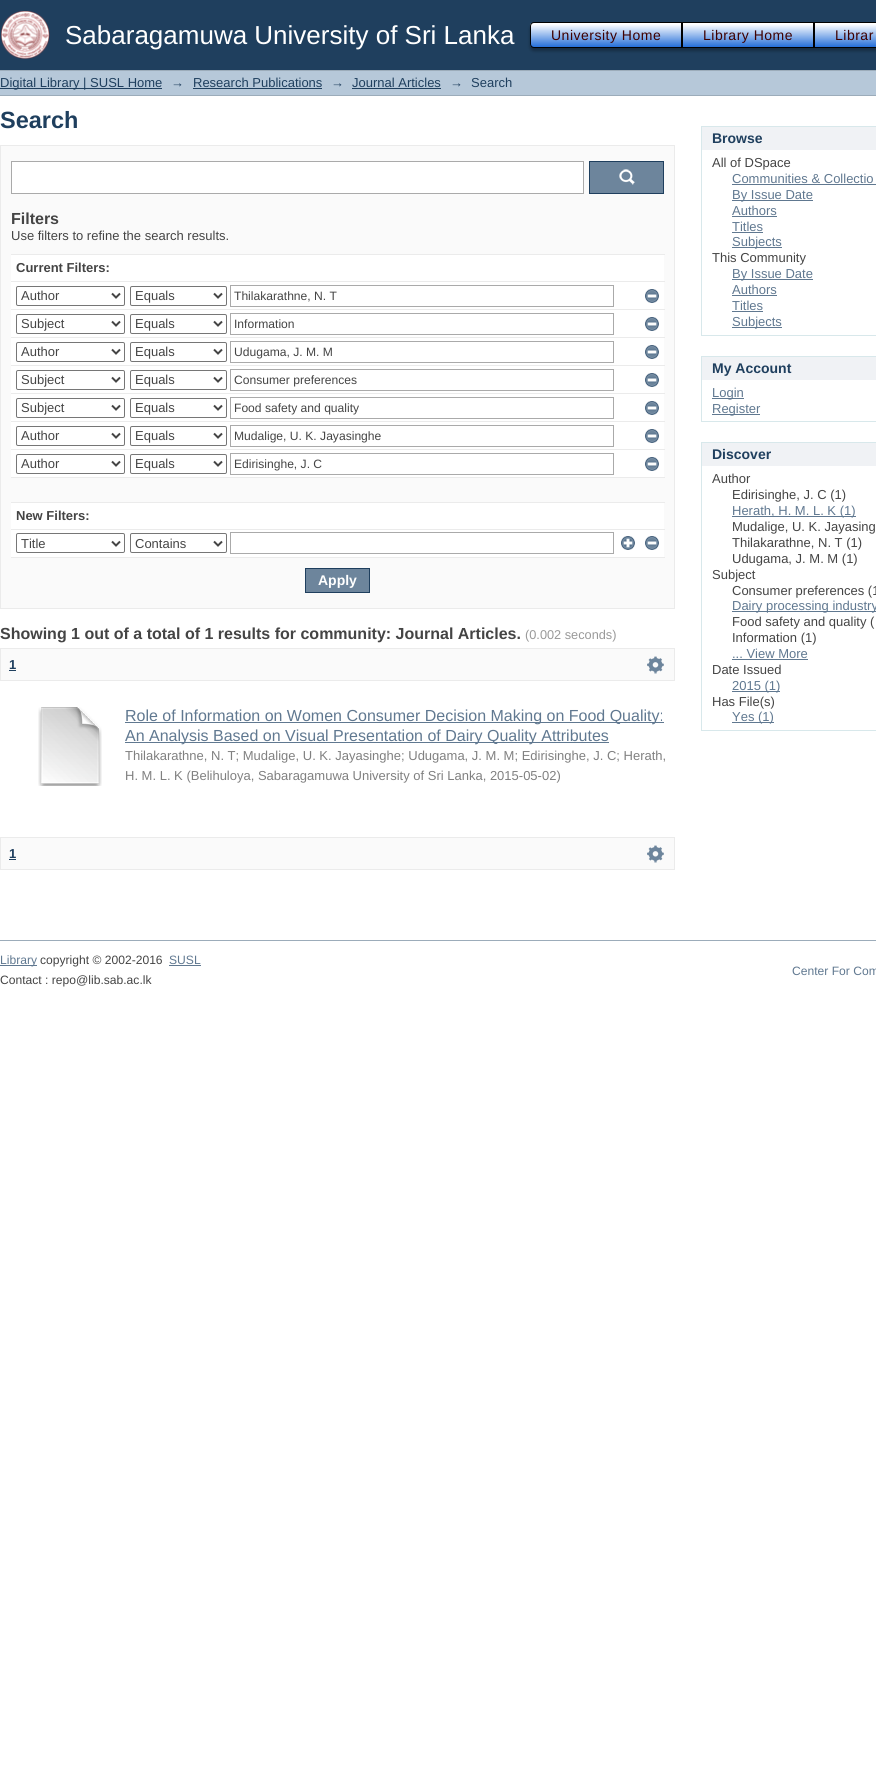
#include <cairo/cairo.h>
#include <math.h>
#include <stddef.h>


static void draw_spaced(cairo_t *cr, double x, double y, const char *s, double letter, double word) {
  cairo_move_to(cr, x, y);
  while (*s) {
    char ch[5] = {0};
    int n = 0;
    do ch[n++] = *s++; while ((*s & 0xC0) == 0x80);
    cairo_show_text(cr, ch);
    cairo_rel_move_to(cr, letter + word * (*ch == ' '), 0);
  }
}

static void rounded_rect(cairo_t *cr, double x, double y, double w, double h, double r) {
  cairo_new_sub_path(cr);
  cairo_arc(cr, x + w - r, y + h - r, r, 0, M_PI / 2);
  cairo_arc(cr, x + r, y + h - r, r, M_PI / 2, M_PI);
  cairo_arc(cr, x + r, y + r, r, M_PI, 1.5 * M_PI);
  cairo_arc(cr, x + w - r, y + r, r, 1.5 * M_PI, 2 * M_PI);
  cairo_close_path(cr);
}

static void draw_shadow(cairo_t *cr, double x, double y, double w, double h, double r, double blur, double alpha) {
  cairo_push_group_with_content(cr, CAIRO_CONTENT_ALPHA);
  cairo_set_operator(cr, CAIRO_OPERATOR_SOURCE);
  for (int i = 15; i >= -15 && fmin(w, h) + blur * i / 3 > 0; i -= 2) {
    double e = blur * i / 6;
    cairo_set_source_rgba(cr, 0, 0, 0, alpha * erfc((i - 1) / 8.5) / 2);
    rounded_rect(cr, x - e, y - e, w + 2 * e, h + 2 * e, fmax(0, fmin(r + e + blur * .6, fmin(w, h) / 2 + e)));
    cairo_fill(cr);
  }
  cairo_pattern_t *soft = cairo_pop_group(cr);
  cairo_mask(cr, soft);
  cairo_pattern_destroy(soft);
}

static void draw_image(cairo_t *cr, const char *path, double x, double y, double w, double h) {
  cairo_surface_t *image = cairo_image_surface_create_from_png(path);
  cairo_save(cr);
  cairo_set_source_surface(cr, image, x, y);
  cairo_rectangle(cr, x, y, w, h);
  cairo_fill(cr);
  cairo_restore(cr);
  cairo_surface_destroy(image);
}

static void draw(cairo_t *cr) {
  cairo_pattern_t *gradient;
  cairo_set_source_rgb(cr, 1, 1, 1);
  cairo_paint(cr);
  cairo_set_source_rgb(cr, 31 / 255.0, 63 / 255.0, 94 / 255.0);
  cairo_rectangle(cr, 0, 0, 876, 70);
  cairo_fill(cr);
  draw_image(cr, "images/1.png", 1, 10, 49, 49);
  cairo_set_source_rgb(cr, 0, 0, 0);
  draw_shadow(cr, 530, 25, 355, 26, 4, 1.5, 0.3);
  cairo_save(cr);
  rounded_rect(cr, 530, 22, 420, 26, 4);
  cairo_clip(cr);
  gradient = cairo_pattern_create_linear(531, 23, 531, 47);
  cairo_pattern_add_color_stop_rgba(gradient, 0.05, 1, 1, 1, 1);
  cairo_pattern_add_color_stop_rgba(gradient, 1, 37 / 255.0, 111 / 255.0, 217 / 255.0, 1);
  cairo_set_source(cr, gradient);
  cairo_pattern_destroy(gradient);
  cairo_rectangle(cr, 530, 23, 346, 24);
  cairo_fill(cr);
  cairo_restore(cr);
  rounded_rect(cr, 530.5, 22.5, 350, 25, 3.5);
  cairo_set_source_rgb(cr, 0, 0, 0);
  cairo_set_line_width(cr, 1);
  cairo_stroke(cr);
  cairo_rectangle(cr, 681, 23, 2, 24);
  cairo_fill(cr);
  cairo_rectangle(cr, 813, 23, 2, 24);
  cairo_fill(cr);
  cairo_set_source_rgb(cr, 182 / 255.0, 200 / 255.0, 217 / 255.0);
  cairo_rectangle(cr, 0, 71, 876, 24);
  cairo_fill(cr);
  cairo_set_source_rgb(cr, 156 / 255.0, 172 / 255.0, 186 / 255.0);
  cairo_rectangle(cr, 0, 70, 876, 1);
  cairo_fill(cr);
  cairo_rectangle(cr, 0, 95, 876, 1);
  cairo_fill(cr);
  cairo_set_source_rgb(cr, 31 / 255.0, 63 / 255.0, 94 / 255.0);
  cairo_rectangle(cr, 0, 88, 162, 1);
  cairo_fill(cr);
  cairo_rectangle(cr, 193, 88, 129, 1);
  cairo_fill(cr);
  cairo_rectangle(cr, 352, 88, 89, 1);
  cairo_fill(cr);
  cairo_set_source_rgb(cr, 250 / 255.0, 250 / 255.0, 250 / 255.0);
  cairo_rectangle(cr, 0.5, 145.5, 674, 463);
  cairo_fill_preserve(cr);
  cairo_set_source_rgb(cr, 235 / 255.0, 235 / 255.0, 235 / 255.0);
  cairo_stroke(cr);
  cairo_set_source_rgb(cr, 1, 1, 1);
  cairo_rectangle(cr, 11.5, 161.5, 572, 32);
  cairo_fill_preserve(cr);
  cairo_set_source_rgb(cr, 170 / 255.0, 170 / 255.0, 170 / 255.0);
  cairo_stroke(cr);
  cairo_set_source_rgb(cr, 109 / 255.0, 133 / 255.0, 156 / 255.0);
  cairo_rectangle(cr, 590, 162, 73, 31);
  cairo_fill(cr);
  draw_image(cr, "images/2.png", 619, 169, 16, 16);
  cairo_rectangle(cr, 589.5, 161.5, 74, 32);
  cairo_set_source_rgb(cr, 31 / 255.0, 63 / 255.0, 94 / 255.0);
  cairo_stroke(cr);
  cairo_set_source_rgb(cr, 1, 1, 1);
  cairo_rectangle(cr, 11, 255, 653, 302);
  cairo_fill(cr);
  cairo_set_source_rgb(cr, 235 / 255.0, 235 / 255.0, 235 / 255.0);
  cairo_rectangle(cr, 11, 254, 654, 1);
  cairo_fill(cr);
  cairo_rectangle(cr, 11, 281, 654, 1);
  cairo_fill(cr);
  rounded_rect(cr, 16.5, 286.5, 108, 19, 1.5);
  cairo_set_source_rgb(cr, 118 / 255.0, 118 / 255.0, 118 / 255.0);
  cairo_stroke(cr);
  cairo_new_path(cr);
  cairo_move_to(cr, 112, 293.5);
  cairo_line_to(cr, 116, 297.5);
  cairo_line_to(cr, 120, 293.5);
  cairo_set_source_rgb(cr, 68 / 255.0, 68 / 255.0, 68 / 255.0);
  cairo_set_line_width(cr, 2);
  cairo_stroke(cr);
  rounded_rect(cr, 130.5, 286.5, 96, 19, 1.5);
  cairo_set_source_rgb(cr, 118 / 255.0, 118 / 255.0, 118 / 255.0);
  cairo_set_line_width(cr, 1);
  cairo_stroke(cr);
  cairo_new_path(cr);
  cairo_move_to(cr, 214, 293.5);
  cairo_line_to(cr, 218, 297.5);
  cairo_line_to(cr, 222, 293.5);
  cairo_set_source_rgb(cr, 68 / 255.0, 68 / 255.0, 68 / 255.0);
  cairo_set_line_width(cr, 2);
  cairo_stroke(cr);
  cairo_rectangle(cr, 230.5, 285.5, 383, 21);
  cairo_set_source_rgb(cr, 170 / 255.0, 170 / 255.0, 170 / 255.0);
  cairo_set_line_width(cr, 1);
  cairo_stroke(cr);
  draw_image(cr, "images/3.png", 645, 289, 14, 14);
  cairo_set_source_rgb(cr, 235 / 255.0, 235 / 255.0, 235 / 255.0);
  cairo_rectangle(cr, 11, 309, 654, 1);
  cairo_fill(cr);
  rounded_rect(cr, 16.5, 314.5, 108, 19, 1.5);
  cairo_set_source_rgb(cr, 118 / 255.0, 118 / 255.0, 118 / 255.0);
  cairo_stroke(cr);
  cairo_new_path(cr);
  cairo_move_to(cr, 112, 321.5);
  cairo_line_to(cr, 116, 325.5);
  cairo_line_to(cr, 120, 321.5);
  cairo_set_source_rgb(cr, 68 / 255.0, 68 / 255.0, 68 / 255.0);
  cairo_set_line_width(cr, 2);
  cairo_stroke(cr);
  rounded_rect(cr, 130.5, 314.5, 96, 19, 1.5);
  cairo_set_source_rgb(cr, 118 / 255.0, 118 / 255.0, 118 / 255.0);
  cairo_set_line_width(cr, 1);
  cairo_stroke(cr);
  cairo_new_path(cr);
  cairo_move_to(cr, 214, 321.5);
  cairo_line_to(cr, 218, 325.5);
  cairo_line_to(cr, 222, 321.5);
  cairo_set_source_rgb(cr, 68 / 255.0, 68 / 255.0, 68 / 255.0);
  cairo_set_line_width(cr, 2);
  cairo_stroke(cr);
  cairo_rectangle(cr, 230.5, 313.5, 383, 21);
  cairo_set_source_rgb(cr, 170 / 255.0, 170 / 255.0, 170 / 255.0);
  cairo_set_line_width(cr, 1);
  cairo_stroke(cr);
  draw_image(cr, "images/3.png", 645, 317, 14, 14);
  cairo_set_source_rgb(cr, 235 / 255.0, 235 / 255.0, 235 / 255.0);
  cairo_rectangle(cr, 11, 337, 654, 1);
  cairo_fill(cr);
  rounded_rect(cr, 16.5, 342.5, 108, 19, 1.5);
  cairo_set_source_rgb(cr, 118 / 255.0, 118 / 255.0, 118 / 255.0);
  cairo_stroke(cr);
  cairo_new_path(cr);
  cairo_move_to(cr, 112, 349.5);
  cairo_line_to(cr, 116, 353.5);
  cairo_line_to(cr, 120, 349.5);
  cairo_set_source_rgb(cr, 68 / 255.0, 68 / 255.0, 68 / 255.0);
  cairo_set_line_width(cr, 2);
  cairo_stroke(cr);
  rounded_rect(cr, 130.5, 342.5, 96, 19, 1.5);
  cairo_set_source_rgb(cr, 118 / 255.0, 118 / 255.0, 118 / 255.0);
  cairo_set_line_width(cr, 1);
  cairo_stroke(cr);
  cairo_new_path(cr);
  cairo_move_to(cr, 214, 349.5);
  cairo_line_to(cr, 218, 353.5);
  cairo_line_to(cr, 222, 349.5);
  cairo_set_source_rgb(cr, 68 / 255.0, 68 / 255.0, 68 / 255.0);
  cairo_set_line_width(cr, 2);
  cairo_stroke(cr);
  cairo_rectangle(cr, 230.5, 341.5, 383, 21);
  cairo_set_source_rgb(cr, 170 / 255.0, 170 / 255.0, 170 / 255.0);
  cairo_set_line_width(cr, 1);
  cairo_stroke(cr);
  draw_image(cr, "images/3.png", 645, 345, 14, 14);
  cairo_set_source_rgb(cr, 235 / 255.0, 235 / 255.0, 235 / 255.0);
  cairo_rectangle(cr, 11, 365, 654, 1);
  cairo_fill(cr);
  rounded_rect(cr, 16.5, 370.5, 108, 19, 1.5);
  cairo_set_source_rgb(cr, 118 / 255.0, 118 / 255.0, 118 / 255.0);
  cairo_stroke(cr);
  cairo_new_path(cr);
  cairo_move_to(cr, 112, 377.5);
  cairo_line_to(cr, 116, 381.5);
  cairo_line_to(cr, 120, 377.5);
  cairo_set_source_rgb(cr, 68 / 255.0, 68 / 255.0, 68 / 255.0);
  cairo_set_line_width(cr, 2);
  cairo_stroke(cr);
  rounded_rect(cr, 130.5, 370.5, 96, 19, 1.5);
  cairo_set_source_rgb(cr, 118 / 255.0, 118 / 255.0, 118 / 255.0);
  cairo_set_line_width(cr, 1);
  cairo_stroke(cr);
  cairo_new_path(cr);
  cairo_move_to(cr, 214, 377.5);
  cairo_line_to(cr, 218, 381.5);
  cairo_line_to(cr, 222, 377.5);
  cairo_set_source_rgb(cr, 68 / 255.0, 68 / 255.0, 68 / 255.0);
  cairo_set_line_width(cr, 2);
  cairo_stroke(cr);
  cairo_rectangle(cr, 230.5, 369.5, 383, 21);
  cairo_set_source_rgb(cr, 170 / 255.0, 170 / 255.0, 170 / 255.0);
  cairo_set_line_width(cr, 1);
  cairo_stroke(cr);
  draw_image(cr, "images/3.png", 645, 373, 14, 14);
  cairo_set_source_rgb(cr, 235 / 255.0, 235 / 255.0, 235 / 255.0);
  cairo_rectangle(cr, 11, 393, 654, 1);
  cairo_fill(cr);
  rounded_rect(cr, 16.5, 398.5, 108, 19, 1.5);
  cairo_set_source_rgb(cr, 118 / 255.0, 118 / 255.0, 118 / 255.0);
  cairo_stroke(cr);
  cairo_new_path(cr);
  cairo_move_to(cr, 112, 405.5);
  cairo_line_to(cr, 116, 409.5);
  cairo_line_to(cr, 120, 405.5);
  cairo_set_source_rgb(cr, 68 / 255.0, 68 / 255.0, 68 / 255.0);
  cairo_set_line_width(cr, 2);
  cairo_stroke(cr);
  rounded_rect(cr, 130.5, 398.5, 96, 19, 1.5);
  cairo_set_source_rgb(cr, 118 / 255.0, 118 / 255.0, 118 / 255.0);
  cairo_set_line_width(cr, 1);
  cairo_stroke(cr);
  cairo_new_path(cr);
  cairo_move_to(cr, 214, 405.5);
  cairo_line_to(cr, 218, 409.5);
  cairo_line_to(cr, 222, 405.5);
  cairo_set_source_rgb(cr, 68 / 255.0, 68 / 255.0, 68 / 255.0);
  cairo_set_line_width(cr, 2);
  cairo_stroke(cr);
  cairo_rectangle(cr, 230.5, 397.5, 383, 21);
  cairo_set_source_rgb(cr, 170 / 255.0, 170 / 255.0, 170 / 255.0);
  cairo_set_line_width(cr, 1);
  cairo_stroke(cr);
  draw_image(cr, "images/3.png", 645, 401, 14, 14);
  cairo_set_source_rgb(cr, 235 / 255.0, 235 / 255.0, 235 / 255.0);
  cairo_rectangle(cr, 11, 421, 654, 1);
  cairo_fill(cr);
  rounded_rect(cr, 16.5, 426.5, 108, 19, 1.5);
  cairo_set_source_rgb(cr, 118 / 255.0, 118 / 255.0, 118 / 255.0);
  cairo_stroke(cr);
  cairo_new_path(cr);
  cairo_move_to(cr, 112, 433.5);
  cairo_line_to(cr, 116, 437.5);
  cairo_line_to(cr, 120, 433.5);
  cairo_set_source_rgb(cr, 68 / 255.0, 68 / 255.0, 68 / 255.0);
  cairo_set_line_width(cr, 2);
  cairo_stroke(cr);
  rounded_rect(cr, 130.5, 426.5, 96, 19, 1.5);
  cairo_set_source_rgb(cr, 118 / 255.0, 118 / 255.0, 118 / 255.0);
  cairo_set_line_width(cr, 1);
  cairo_stroke(cr);
  cairo_new_path(cr);
  cairo_move_to(cr, 214, 433.5);
  cairo_line_to(cr, 218, 437.5);
  cairo_line_to(cr, 222, 433.5);
  cairo_set_source_rgb(cr, 68 / 255.0, 68 / 255.0, 68 / 255.0);
  cairo_set_line_width(cr, 2);
  cairo_stroke(cr);
  cairo_rectangle(cr, 230.5, 425.5, 383, 21);
  cairo_set_source_rgb(cr, 170 / 255.0, 170 / 255.0, 170 / 255.0);
  cairo_set_line_width(cr, 1);
  cairo_stroke(cr);
  draw_image(cr, "images/3.png", 645, 429, 14, 14);
  cairo_set_source_rgb(cr, 235 / 255.0, 235 / 255.0, 235 / 255.0);
  cairo_rectangle(cr, 11, 449, 654, 1);
  cairo_fill(cr);
  rounded_rect(cr, 16.5, 454.5, 108, 19, 1.5);
  cairo_set_source_rgb(cr, 118 / 255.0, 118 / 255.0, 118 / 255.0);
  cairo_stroke(cr);
  cairo_new_path(cr);
  cairo_move_to(cr, 112, 461.5);
  cairo_line_to(cr, 116, 465.5);
  cairo_line_to(cr, 120, 461.5);
  cairo_set_source_rgb(cr, 68 / 255.0, 68 / 255.0, 68 / 255.0);
  cairo_set_line_width(cr, 2);
  cairo_stroke(cr);
  rounded_rect(cr, 130.5, 454.5, 96, 19, 1.5);
  cairo_set_source_rgb(cr, 118 / 255.0, 118 / 255.0, 118 / 255.0);
  cairo_set_line_width(cr, 1);
  cairo_stroke(cr);
  cairo_new_path(cr);
  cairo_move_to(cr, 214, 461.5);
  cairo_line_to(cr, 218, 465.5);
  cairo_line_to(cr, 222, 461.5);
  cairo_set_source_rgb(cr, 68 / 255.0, 68 / 255.0, 68 / 255.0);
  cairo_set_line_width(cr, 2);
  cairo_stroke(cr);
  cairo_rectangle(cr, 230.5, 453.5, 383, 21);
  cairo_set_source_rgb(cr, 170 / 255.0, 170 / 255.0, 170 / 255.0);
  cairo_set_line_width(cr, 1);
  cairo_stroke(cr);
  draw_image(cr, "images/3.png", 645, 457, 14, 14);
  cairo_set_source_rgb(cr, 250 / 255.0, 250 / 255.0, 250 / 255.0);
  cairo_rectangle(cr, 11, 478, 653, 24);
  cairo_fill(cr);
  cairo_set_source_rgb(cr, 235 / 255.0, 235 / 255.0, 235 / 255.0);
  cairo_rectangle(cr, 11, 477, 654, 1);
  cairo_fill(cr);
  cairo_rectangle(cr, 11, 502, 654, 1);
  cairo_fill(cr);
  cairo_rectangle(cr, 11, 529, 654, 1);
  cairo_fill(cr);
  rounded_rect(cr, 16.5, 533.5, 108, 19, 1.5);
  cairo_set_source_rgb(cr, 118 / 255.0, 118 / 255.0, 118 / 255.0);
  cairo_stroke(cr);
  cairo_new_path(cr);
  cairo_move_to(cr, 112, 541.5);
  cairo_line_to(cr, 116, 545.5);
  cairo_line_to(cr, 120, 541.5);
  cairo_set_source_rgb(cr, 68 / 255.0, 68 / 255.0, 68 / 255.0);
  cairo_set_line_width(cr, 2);
  cairo_stroke(cr);
  rounded_rect(cr, 130.5, 533.5, 96, 19, 1.5);
  cairo_set_source_rgb(cr, 118 / 255.0, 118 / 255.0, 118 / 255.0);
  cairo_set_line_width(cr, 1);
  cairo_stroke(cr);
  cairo_new_path(cr);
  cairo_move_to(cr, 214, 541.5);
  cairo_line_to(cr, 218, 545.5);
  cairo_line_to(cr, 222, 541.5);
  cairo_set_source_rgb(cr, 68 / 255.0, 68 / 255.0, 68 / 255.0);
  cairo_set_line_width(cr, 2);
  cairo_stroke(cr);
  cairo_rectangle(cr, 230.5, 532.5, 383, 21);
  cairo_set_source_rgb(cr, 170 / 255.0, 170 / 255.0, 170 / 255.0);
  cairo_set_line_width(cr, 1);
  cairo_stroke(cr);
  draw_image(cr, "images/4.png", 621, 536, 14, 14);
  draw_image(cr, "images/3.png", 645, 536, 14, 14);
  cairo_set_source_rgb(cr, 235 / 255.0, 235 / 255.0, 235 / 255.0);
  cairo_rectangle(cr, 11, 557, 654, 1);
  cairo_fill(cr);
  cairo_set_source_rgb(cr, 109 / 255.0, 133 / 255.0, 156 / 255.0);
  cairo_rectangle(cr, 305.5, 568.5, 64, 24);
  cairo_fill_preserve(cr);
  cairo_set_source_rgb(cr, 31 / 255.0, 63 / 255.0, 94 / 255.0);
  cairo_stroke(cr);
  cairo_set_source_rgb(cr, 250 / 255.0, 250 / 255.0, 250 / 255.0);
  cairo_rectangle(cr, 0.5, 648.5, 674, 32);
  cairo_fill_preserve(cr);
  cairo_set_source_rgb(cr, 235 / 255.0, 235 / 255.0, 235 / 255.0);
  cairo_stroke(cr);
  cairo_set_source_rgb(cr, 31 / 255.0, 63 / 255.0, 94 / 255.0);
  cairo_rectangle(cr, 9, 670, 7, 1);
  cairo_fill(cr);
  draw_image(cr, "images/5.png", 647, 656, 17, 18);
  draw_image(cr, "images/6.png", 38, 707, 64, 79);
  cairo_set_source_rgb(cr, 96 / 255.0, 120 / 255.0, 144 / 255.0);
  cairo_rectangle(cr, 125, 722, 539, 1);
  cairo_fill(cr);
  cairo_rectangle(cr, 125, 742, 484, 1);
  cairo_fill(cr);
  cairo_set_source_rgb(cr, 250 / 255.0, 250 / 255.0, 250 / 255.0);
  cairo_rectangle(cr, 0.5, 837.5, 674, 32);
  cairo_fill_preserve(cr);
  cairo_set_source_rgb(cr, 235 / 255.0, 235 / 255.0, 235 / 255.0);
  cairo_stroke(cr);
  cairo_set_source_rgb(cr, 31 / 255.0, 63 / 255.0, 94 / 255.0);
  cairo_rectangle(cr, 9, 859, 7, 1);
  cairo_fill(cr);
  draw_image(cr, "images/5.png", 647, 845, 17, 18);
  cairo_set_source_rgb(cr, 240 / 255.0, 242 / 255.0, 245 / 255.0);
  cairo_rectangle(cr, 702, 127, 174, 23);
  cairo_fill(cr);
  cairo_set_source_rgb(cr, 216 / 255.0, 232 / 255.0, 235 / 255.0);
  cairo_rectangle(cr, 701, 126, 175, 1);
  cairo_fill(cr);
  cairo_rectangle(cr, 701, 126, 1, 24);
  cairo_fill(cr);
  cairo_rectangle(cr, 701, 335, 175, 1);
  cairo_fill(cr);
  cairo_rectangle(cr, 701, 150, 1, 186);
  cairo_fill(cr);
  cairo_set_source_rgb(cr, 96 / 255.0, 120 / 255.0, 144 / 255.0);
  cairo_rectangle(cr, 732, 184, 144, 1);
  cairo_fill(cr);
  cairo_rectangle(cr, 732, 200, 81, 1);
  cairo_fill(cr);
  cairo_rectangle(cr, 732, 216, 45, 1);
  cairo_fill(cr);
  cairo_rectangle(cr, 732, 232, 31, 1);
  cairo_fill(cr);
  cairo_rectangle(cr, 732, 247, 50, 1);
  cairo_fill(cr);
  cairo_rectangle(cr, 732, 279, 81, 1);
  cairo_fill(cr);
  cairo_rectangle(cr, 732, 295, 45, 1);
  cairo_fill(cr);
  cairo_rectangle(cr, 732, 311, 31, 1);
  cairo_fill(cr);
  cairo_rectangle(cr, 732, 327, 50, 1);
  cairo_fill(cr);
  cairo_set_source_rgb(cr, 240 / 255.0, 242 / 255.0, 245 / 255.0);
  cairo_rectangle(cr, 702, 357, 174, 23);
  cairo_fill(cr);
  cairo_set_source_rgb(cr, 216 / 255.0, 232 / 255.0, 235 / 255.0);
  cairo_rectangle(cr, 701, 356, 175, 1);
  cairo_fill(cr);
  cairo_rectangle(cr, 701, 356, 1, 24);
  cairo_fill(cr);
  cairo_rectangle(cr, 701, 421, 175, 1);
  cairo_fill(cr);
  cairo_rectangle(cr, 701, 380, 1, 42);
  cairo_fill(cr);
  cairo_set_source_rgb(cr, 96 / 255.0, 120 / 255.0, 144 / 255.0);
  cairo_rectangle(cr, 712, 398, 32, 1);
  cairo_fill(cr);
  cairo_rectangle(cr, 712, 414, 48, 1);
  cairo_fill(cr);
  cairo_set_source_rgb(cr, 240 / 255.0, 242 / 255.0, 245 / 255.0);
  cairo_rectangle(cr, 702, 443, 174, 23);
  cairo_fill(cr);
  cairo_set_source_rgb(cr, 216 / 255.0, 232 / 255.0, 235 / 255.0);
  cairo_rectangle(cr, 701, 442, 175, 1);
  cairo_fill(cr);
  cairo_rectangle(cr, 701, 442, 1, 24);
  cairo_fill(cr);
  cairo_rectangle(cr, 701, 730, 175, 1);
  cairo_fill(cr);
  cairo_rectangle(cr, 701, 466, 1, 265);
  cairo_fill(cr);
  cairo_set_source_rgb(cr, 96 / 255.0, 120 / 255.0, 144 / 255.0);
  cairo_rectangle(cr, 732, 516, 124, 1);
  cairo_fill(cr);
  cairo_rectangle(cr, 732, 611, 144, 1);
  cairo_fill(cr);
  cairo_rectangle(cr, 732, 659, 76, 1);
  cairo_fill(cr);
  cairo_rectangle(cr, 732, 691, 48, 1);
  cairo_fill(cr);
  cairo_rectangle(cr, 732, 722, 42, 1);
  cairo_fill(cr);
  cairo_set_source_rgb(cr, 156 / 255.0, 172 / 255.0, 186 / 255.0);
  cairo_rectangle(cr, 0, 940, 876, 1);
  cairo_fill(cr);
  cairo_set_source_rgb(cr, 96 / 255.0, 120 / 255.0, 144 / 255.0);
  cairo_rectangle(cr, 0, 965, 37, 1);
  cairo_fill(cr);
  cairo_rectangle(cr, 169, 965, 32, 1);
  cairo_fill(cr);
  cairo_select_font_face(cr, "Liberation Sans", CAIRO_FONT_SLANT_NORMAL, CAIRO_FONT_WEIGHT_NORMAL);
  cairo_set_font_size(cr, 26);
  cairo_set_source_rgb(cr, 1, 1, 1);
  cairo_move_to(cr, 65, 44);
  cairo_show_text(cr, "Sabaragamuwa University of Sri Lanka");
  cairo_set_font_size(cr, 14);
  cairo_set_source_rgb(cr, 62 / 255.0, 0, 0);
  draw_spaced(cr, 551, 40, "University Home", 0.5, 0);
  draw_spaced(cr, 703, 40, "Library Home", 0.5, 0);
  draw_spaced(cr, 835, 40, "Librar", 0.5, 0);
  cairo_set_font_size(cr, 13);
  cairo_set_source_rgb(cr, 31 / 255.0, 63 / 255.0, 94 / 255.0);
  cairo_move_to(cr, 0, 87);
  cairo_show_text(cr, "Digital Library | SUSL Home");
  cairo_move_to(cr, 171, 87);
  cairo_show_text(cr, "→");
  cairo_move_to(cr, 193, 87);
  cairo_show_text(cr, "Research Publications");
  cairo_move_to(cr, 331, 87);
  cairo_show_text(cr, "→");
  cairo_move_to(cr, 352, 87);
  cairo_show_text(cr, "Journal Articles");
  cairo_move_to(cr, 450, 87);
  cairo_show_text(cr, "→");
  cairo_move_to(cr, 471, 87);
  cairo_show_text(cr, "Search");
  cairo_select_font_face(cr, "Liberation Sans", CAIRO_FONT_SLANT_NORMAL, CAIRO_FONT_WEIGHT_BOLD);
  cairo_set_font_size(cr, 23.5);
  cairo_move_to(cr, 0, 128);
  cairo_show_text(cr, "Search");
  cairo_set_font_size(cr, 16);
  cairo_set_source_rgb(cr, 68 / 255.0, 68 / 255.0, 68 / 255.0);
  cairo_move_to(cr, 11, 224);
  cairo_show_text(cr, "Filters");
  cairo_select_font_face(cr, "Liberation Sans", CAIRO_FONT_SLANT_NORMAL, CAIRO_FONT_WEIGHT_NORMAL);
  cairo_set_font_size(cr, 13);
  cairo_move_to(cr, 11, 240);
  cairo_show_text(cr, "Use filters to refine the search results.");
  cairo_select_font_face(cr, "Liberation Sans", CAIRO_FONT_SLANT_NORMAL, CAIRO_FONT_WEIGHT_BOLD);
  cairo_move_to(cr, 16, 272);
  cairo_show_text(cr, "Current Filters:");
  cairo_select_font_face(cr, "Liberation Sans", CAIRO_FONT_SLANT_NORMAL, CAIRO_FONT_WEIGHT_NORMAL);
  cairo_move_to(cr, 21, 300);
  cairo_show_text(cr, "Author");
  cairo_move_to(cr, 135, 300);
  cairo_show_text(cr, "Equals");
  cairo_set_font_size(cr, 12.1);
  cairo_move_to(cr, 234, 300);
  cairo_show_text(cr, "Thilakarathne, N. T");
  cairo_set_font_size(cr, 13);
  cairo_move_to(cr, 21, 328);
  cairo_show_text(cr, "Subject");
  cairo_move_to(cr, 135, 328);
  cairo_show_text(cr, "Equals");
  cairo_set_font_size(cr, 12.1);
  cairo_move_to(cr, 234, 328);
  cairo_show_text(cr, "Information");
  cairo_set_font_size(cr, 13);
  cairo_move_to(cr, 21, 356);
  cairo_show_text(cr, "Author");
  cairo_move_to(cr, 135, 356);
  cairo_show_text(cr, "Equals");
  cairo_set_font_size(cr, 12.1);
  cairo_move_to(cr, 234, 356);
  cairo_show_text(cr, "Udugama, J. M. M");
  cairo_set_font_size(cr, 13);
  cairo_move_to(cr, 21, 384);
  cairo_show_text(cr, "Subject");
  cairo_move_to(cr, 135, 384);
  cairo_show_text(cr, "Equals");
  cairo_set_font_size(cr, 12.1);
  cairo_move_to(cr, 234, 384);
  cairo_show_text(cr, "Consumer preferences");
  cairo_set_font_size(cr, 13);
  cairo_move_to(cr, 21, 412);
  cairo_show_text(cr, "Subject");
  cairo_move_to(cr, 135, 412);
  cairo_show_text(cr, "Equals");
  cairo_set_font_size(cr, 12.1);
  cairo_move_to(cr, 234, 412);
  cairo_show_text(cr, "Food safety and quality");
  cairo_set_font_size(cr, 13);
  cairo_move_to(cr, 21, 440);
  cairo_show_text(cr, "Author");
  cairo_move_to(cr, 135, 440);
  cairo_show_text(cr, "Equals");
  cairo_set_font_size(cr, 12.1);
  cairo_move_to(cr, 234, 440);
  cairo_show_text(cr, "Mudalige, U. K. Jayasinghe");
  cairo_set_font_size(cr, 13);
  cairo_move_to(cr, 21, 468);
  cairo_show_text(cr, "Author");
  cairo_move_to(cr, 135, 468);
  cairo_show_text(cr, "Equals");
  cairo_set_font_size(cr, 12.1);
  cairo_move_to(cr, 234, 468);
  cairo_show_text(cr, "Edirisinghe, J. C");
  cairo_select_font_face(cr, "Liberation Sans", CAIRO_FONT_SLANT_NORMAL, CAIRO_FONT_WEIGHT_BOLD);
  cairo_set_font_size(cr, 13);
  cairo_move_to(cr, 16, 520);
  cairo_show_text(cr, "New Filters:");
  cairo_select_font_face(cr, "Liberation Sans", CAIRO_FONT_SLANT_NORMAL, CAIRO_FONT_WEIGHT_NORMAL);
  cairo_move_to(cr, 21, 548);
  cairo_show_text(cr, "Title");
  cairo_move_to(cr, 135, 548);
  cairo_show_text(cr, "Contains");
  cairo_select_font_face(cr, "Liberation Sans", CAIRO_FONT_SLANT_NORMAL, CAIRO_FONT_WEIGHT_BOLD);
  cairo_set_font_size(cr, 14);
  cairo_set_source_rgb(cr, 1, 1, 1);
  cairo_move_to(cr, 318, 585);
  cairo_show_text(cr, "Apply");
  cairo_set_font_size(cr, 16);
  cairo_set_source_rgb(cr, 68 / 255.0, 68 / 255.0, 68 / 255.0);
  cairo_move_to(cr, 0, 639);
  cairo_show_text(cr, "Showing 1 out of a total of 1 results for community: Journal Articles.");
  cairo_select_font_face(cr, "Liberation Sans", CAIRO_FONT_SLANT_NORMAL, CAIRO_FONT_WEIGHT_NORMAL);
  cairo_set_font_size(cr, 12.75);
  cairo_set_source_rgb(cr, 153 / 255.0, 153 / 255.0, 153 / 255.0);
  cairo_move_to(cr, 525, 639);
  cairo_show_text(cr, "(0.002 seconds)");
  cairo_select_font_face(cr, "Liberation Sans", CAIRO_FONT_SLANT_NORMAL, CAIRO_FONT_WEIGHT_BOLD);
  cairo_set_font_size(cr, 13);
  cairo_set_source_rgb(cr, 31 / 255.0, 63 / 255.0, 94 / 255.0);
  cairo_move_to(cr, 9, 669);
  cairo_show_text(cr, "1");
  cairo_select_font_face(cr, "Liberation Sans", CAIRO_FONT_SLANT_NORMAL, CAIRO_FONT_WEIGHT_NORMAL);
  cairo_set_font_size(cr, 16);
  cairo_set_source_rgb(cr, 96 / 255.0, 120 / 255.0, 144 / 255.0);
  cairo_move_to(cr, 125, 721);
  cairo_show_text(cr, "Role of Information on Women Consumer Decision Making on Food Quality:");
  cairo_move_to(cr, 125, 741);
  cairo_show_text(cr, "An Analysis Based on Visual Presentation of Dairy Quality Attributes");
  cairo_set_font_size(cr, 13);
  cairo_set_source_rgb(cr, 128 / 255.0, 128 / 255.0, 128 / 255.0);
  cairo_move_to(cr, 125, 760);
  cairo_show_text(cr, "Thilakarathne, N. T; Mudalige, U. K. Jayasinghe; Udugama, J. M. M; Edirisinghe, J. C; Herath,");
  cairo_move_to(cr, 125, 780);
  cairo_show_text(cr, "H. M. L. K (Belihuloya, Sabaragamuwa University of Sri Lanka, 2015-05-02)");
  cairo_select_font_face(cr, "Liberation Sans", CAIRO_FONT_SLANT_NORMAL, CAIRO_FONT_WEIGHT_BOLD);
  cairo_set_source_rgb(cr, 31 / 255.0, 63 / 255.0, 94 / 255.0);
  cairo_move_to(cr, 9, 858);
  cairo_show_text(cr, "1");
  cairo_set_font_size(cr, 14);
  cairo_move_to(cr, 712, 143);
  cairo_show_text(cr, "Browse");
  cairo_select_font_face(cr, "Liberation Sans", CAIRO_FONT_SLANT_NORMAL, CAIRO_FONT_WEIGHT_NORMAL);
  cairo_set_font_size(cr, 13);
  cairo_set_source_rgb(cr, 68 / 255.0, 68 / 255.0, 68 / 255.0);
  cairo_move_to(cr, 712, 167);
  cairo_show_text(cr, "All of DSpace");
  cairo_set_source_rgb(cr, 96 / 255.0, 120 / 255.0, 144 / 255.0);
  cairo_move_to(cr, 732, 183);
  cairo_show_text(cr, "Communities & Collectio");
  cairo_move_to(cr, 732, 199);
  cairo_show_text(cr, "By Issue Date");
  cairo_move_to(cr, 732, 215);
  cairo_show_text(cr, "Authors");
  cairo_move_to(cr, 732, 231);
  cairo_show_text(cr, "Titles");
  cairo_move_to(cr, 732, 246);
  cairo_show_text(cr, "Subjects");
  cairo_set_source_rgb(cr, 68 / 255.0, 68 / 255.0, 68 / 255.0);
  cairo_move_to(cr, 712, 262);
  cairo_show_text(cr, "This Community");
  cairo_set_source_rgb(cr, 96 / 255.0, 120 / 255.0, 144 / 255.0);
  cairo_move_to(cr, 732, 278);
  cairo_show_text(cr, "By Issue Date");
  cairo_move_to(cr, 732, 294);
  cairo_show_text(cr, "Authors");
  cairo_move_to(cr, 732, 310);
  cairo_show_text(cr, "Titles");
  cairo_move_to(cr, 732, 326);
  cairo_show_text(cr, "Subjects");
  cairo_select_font_face(cr, "Liberation Sans", CAIRO_FONT_SLANT_NORMAL, CAIRO_FONT_WEIGHT_BOLD);
  cairo_set_font_size(cr, 14);
  cairo_set_source_rgb(cr, 31 / 255.0, 63 / 255.0, 94 / 255.0);
  cairo_move_to(cr, 712, 373);
  cairo_show_text(cr, "My Account");
  cairo_select_font_face(cr, "Liberation Sans", CAIRO_FONT_SLANT_NORMAL, CAIRO_FONT_WEIGHT_NORMAL);
  cairo_set_font_size(cr, 13);
  cairo_set_source_rgb(cr, 96 / 255.0, 120 / 255.0, 144 / 255.0);
  cairo_move_to(cr, 712, 397);
  cairo_show_text(cr, "Login");
  cairo_move_to(cr, 712, 413);
  cairo_show_text(cr, "Register");
  cairo_select_font_face(cr, "Liberation Sans", CAIRO_FONT_SLANT_NORMAL, CAIRO_FONT_WEIGHT_BOLD);
  cairo_set_font_size(cr, 14);
  cairo_set_source_rgb(cr, 31 / 255.0, 63 / 255.0, 94 / 255.0);
  cairo_move_to(cr, 712, 459);
  cairo_show_text(cr, "Discover");
  cairo_select_font_face(cr, "Liberation Sans", CAIRO_FONT_SLANT_NORMAL, CAIRO_FONT_WEIGHT_NORMAL);
  cairo_set_font_size(cr, 13);
  cairo_set_source_rgb(cr, 68 / 255.0, 68 / 255.0, 68 / 255.0);
  cairo_move_to(cr, 712, 483);
  cairo_show_text(cr, "Author");
  cairo_move_to(cr, 732, 499);
  cairo_show_text(cr, "Edirisinghe, J. C (1)");
  cairo_set_source_rgb(cr, 96 / 255.0, 120 / 255.0, 144 / 255.0);
  cairo_move_to(cr, 732, 515);
  cairo_show_text(cr, "Herath, H. M. L. K (1)");
  cairo_set_source_rgb(cr, 68 / 255.0, 68 / 255.0, 68 / 255.0);
  cairo_move_to(cr, 732, 531);
  cairo_show_text(cr, "Mudalige, U. K. Jayasing");
  cairo_move_to(cr, 732, 547);
  cairo_show_text(cr, "Thilakarathne, N. T (1)");
  cairo_move_to(cr, 732, 563);
  cairo_show_text(cr, "Udugama, J. M. M (1)");
  cairo_move_to(cr, 712, 579);
  cairo_show_text(cr, "Subject");
  cairo_move_to(cr, 732, 595);
  cairo_show_text(cr, "Consumer preferences (1");
  cairo_set_source_rgb(cr, 96 / 255.0, 120 / 255.0, 144 / 255.0);
  cairo_move_to(cr, 732, 610);
  cairo_show_text(cr, "Dairy processing industry");
  cairo_set_source_rgb(cr, 68 / 255.0, 68 / 255.0, 68 / 255.0);
  cairo_move_to(cr, 732, 626);
  cairo_show_text(cr, "Food safety and quality (");
  cairo_move_to(cr, 732, 642);
  cairo_show_text(cr, "Information (1)");
  cairo_set_source_rgb(cr, 96 / 255.0, 120 / 255.0, 144 / 255.0);
  cairo_move_to(cr, 732, 658);
  cairo_show_text(cr, "... View More");
  cairo_set_source_rgb(cr, 68 / 255.0, 68 / 255.0, 68 / 255.0);
  cairo_move_to(cr, 712, 674);
  cairo_show_text(cr, "Date Issued");
  cairo_set_source_rgb(cr, 96 / 255.0, 120 / 255.0, 144 / 255.0);
  cairo_move_to(cr, 732, 690);
  cairo_show_text(cr, "2015 (1)");
  cairo_set_source_rgb(cr, 68 / 255.0, 68 / 255.0, 68 / 255.0);
  cairo_move_to(cr, 712, 706);
  cairo_show_text(cr, "Has File(s)");
  cairo_set_source_rgb(cr, 96 / 255.0, 120 / 255.0, 144 / 255.0);
  cairo_move_to(cr, 732, 721);
  cairo_show_text(cr, "Yes (1)");
  cairo_set_font_size(cr, 12.1);
  cairo_move_to(cr, 0, 964);
  cairo_show_text(cr, "Library");
  cairo_set_source_rgb(cr, 68 / 255.0, 68 / 255.0, 68 / 255.0);
  cairo_move_to(cr, 40, 964);
  cairo_show_text(cr, "copyright © 2002-2016");
  cairo_set_source_rgb(cr, 96 / 255.0, 120 / 255.0, 144 / 255.0);
  cairo_move_to(cr, 169, 964);
  cairo_show_text(cr, "SUSL");
  cairo_move_to(cr, 792, 975);
  cairo_show_text(cr, "Center For Com");
  cairo_set_source_rgb(cr, 68 / 255.0, 68 / 255.0, 68 / 255.0);
  cairo_move_to(cr, 0, 984);
  cairo_show_text(cr, "Contact : repo@lib.sab.ac.lk");
}

int main(void) {
  cairo_surface_t *surface = cairo_image_surface_create(CAIRO_FORMAT_RGB24, 876, 1782);
  cairo_t *cr = cairo_create(surface);
  cairo_font_options_t *options = cairo_font_options_create();
  cairo_font_options_set_hint_metrics(options, CAIRO_HINT_METRICS_OFF);
  cairo_font_options_set_hint_style(options, CAIRO_HINT_STYLE_NONE);
  cairo_set_font_options(cr, options);
  cairo_set_miter_limit(cr, 4);
  draw(cr);
  cairo_surface_write_to_png(surface, "out.png");
  cairo_font_options_destroy(options);
  cairo_destroy(cr);
  cairo_surface_destroy(surface);
  return 0;
}
